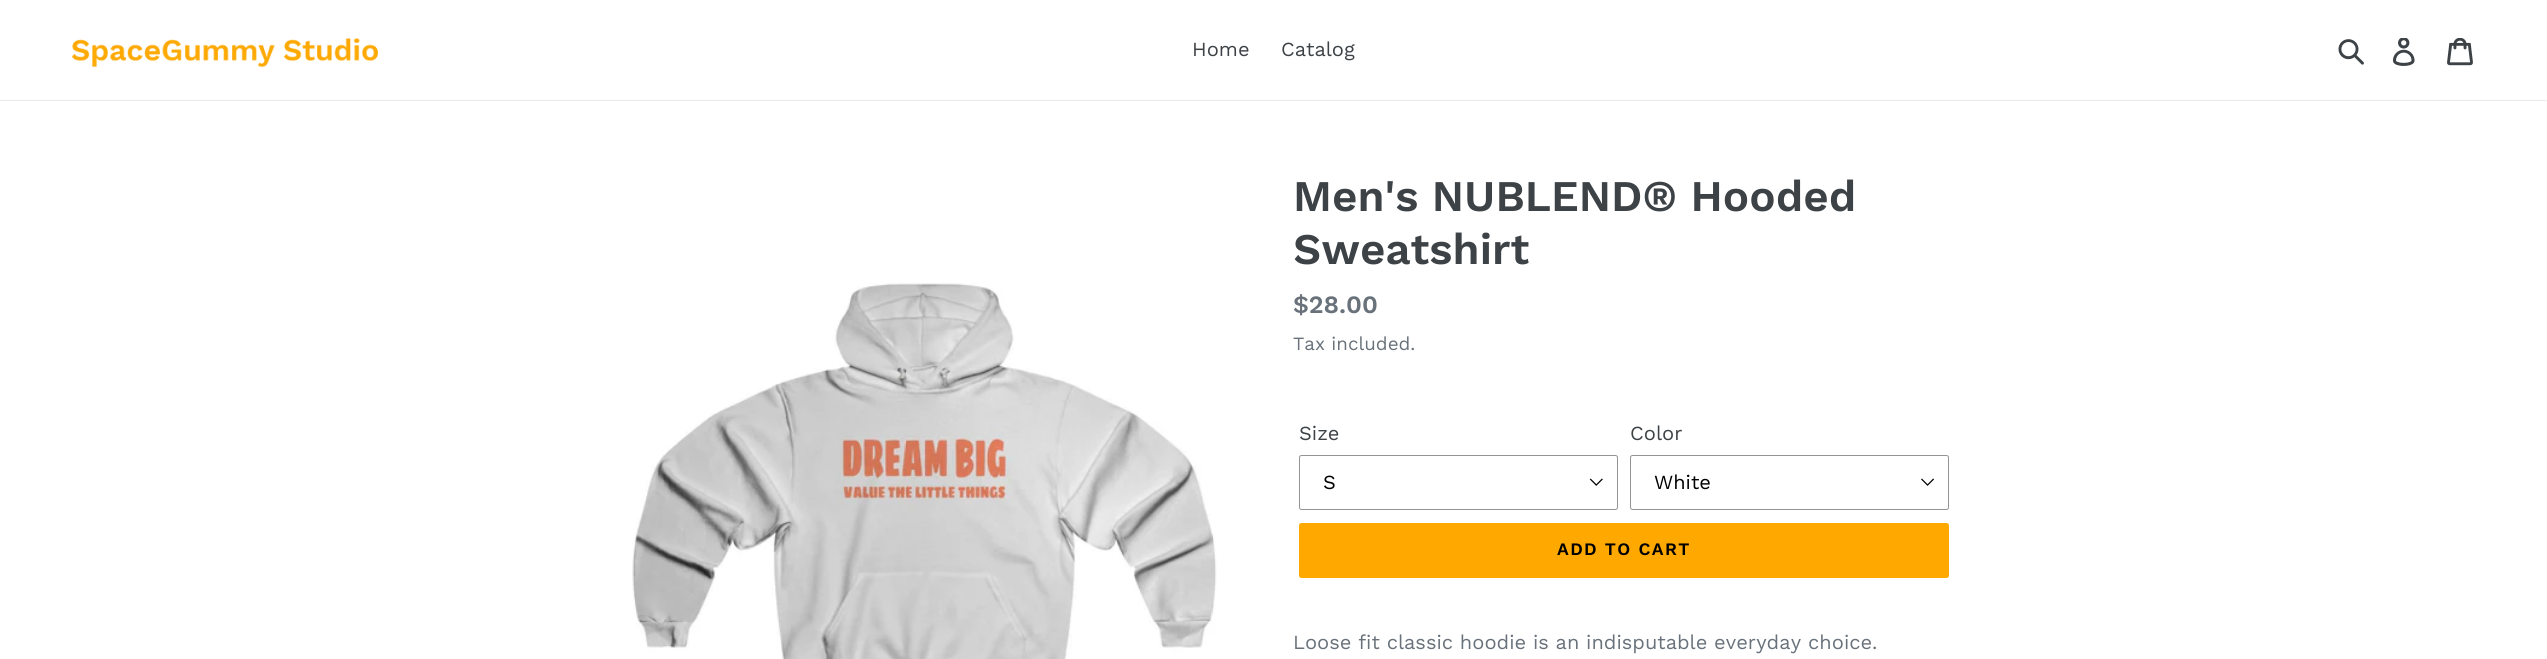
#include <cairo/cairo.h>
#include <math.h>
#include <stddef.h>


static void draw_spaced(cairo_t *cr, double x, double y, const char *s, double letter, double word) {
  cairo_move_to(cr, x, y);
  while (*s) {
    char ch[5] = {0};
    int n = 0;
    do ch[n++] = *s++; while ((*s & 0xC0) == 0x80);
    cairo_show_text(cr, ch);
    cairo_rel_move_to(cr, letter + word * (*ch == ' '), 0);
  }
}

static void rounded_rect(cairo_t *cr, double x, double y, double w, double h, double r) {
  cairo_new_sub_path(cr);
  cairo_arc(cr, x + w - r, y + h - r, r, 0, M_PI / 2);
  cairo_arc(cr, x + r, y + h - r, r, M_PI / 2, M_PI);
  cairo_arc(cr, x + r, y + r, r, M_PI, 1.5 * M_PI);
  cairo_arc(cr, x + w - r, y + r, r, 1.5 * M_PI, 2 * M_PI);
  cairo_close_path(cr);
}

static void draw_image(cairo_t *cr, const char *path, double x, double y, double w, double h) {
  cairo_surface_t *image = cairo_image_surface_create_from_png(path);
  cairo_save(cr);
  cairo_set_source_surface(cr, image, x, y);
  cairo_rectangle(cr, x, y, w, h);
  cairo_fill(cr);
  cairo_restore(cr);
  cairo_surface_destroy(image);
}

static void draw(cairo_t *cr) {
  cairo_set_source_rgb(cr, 1, 1, 1);
  cairo_paint(cr);
  cairo_set_source_rgb(cr, 232 / 255.0, 233 / 255.0, 235 / 255.0);
  cairo_rectangle(cr, 0, 100, 2547, 1);
  cairo_fill(cr);
  draw_image(cr, "images/1.png", 71, 38, 308, 30);
  draw_image(cr, "images/2.png", 2338, 39, 26, 26);
  draw_image(cr, "images/3.png", 2392, 38, 23, 28);
  draw_image(cr, "images/4.png", 2447, 38, 26, 28);
  draw_image(cr, "images/5.png", 632, 283, 585, 376);
  draw_image(cr, "images/6.png", 1589, 478, 14, 8);
  rounded_rect(cr, 1299.5, 455.5, 318, 54, 2);
  cairo_set_source_rgb(cr, 148 / 255.0, 148 / 255.0, 148 / 255.0);
  cairo_set_line_width(cr, 1);
  cairo_stroke(cr);
  draw_image(cr, "images/7.png", 1921, 478, 13, 8);
  rounded_rect(cr, 1630.5, 455.5, 318, 54, 2);
  cairo_stroke(cr);
  cairo_set_source_rgb(cr, 1, 169 / 255.0, 0);
  rounded_rect(cr, 1299, 523, 650, 55, 2.5);
  cairo_fill(cr);
  cairo_select_font_face(cr, "Work Sans", CAIRO_FONT_SLANT_NORMAL, CAIRO_FONT_WEIGHT_NORMAL);
  cairo_set_font_size(cr, 20);
  cairo_set_source_rgb(cr, 61 / 255.0, 66 / 255.0, 70 / 255.0);
  cairo_move_to(cr, 1192, 56);
  cairo_show_text(cr, "Home");
  cairo_move_to(cr, 1281, 56);
  cairo_show_text(cr, "Catalog");
  cairo_select_font_face(cr, "Work Sans SemiBold", CAIRO_FONT_SLANT_NORMAL, CAIRO_FONT_WEIGHT_NORMAL);
  cairo_set_font_size(cr, 43.75);
  cairo_move_to(cr, 1293, 211);
  cairo_show_text(cr, "Men's NUBLEND® Hooded");
  cairo_move_to(cr, 1293, 264);
  cairo_show_text(cr, "Sweatshirt");
  cairo_set_font_size(cr, 25);
  cairo_set_source_rgb(cr, 105 / 255.0, 114 / 255.0, 123 / 255.0);
  cairo_move_to(cr, 1293, 313);
  cairo_show_text(cr, "$28.00");
  cairo_select_font_face(cr, "Work Sans", CAIRO_FONT_SLANT_NORMAL, CAIRO_FONT_WEIGHT_NORMAL);
  cairo_set_font_size(cr, 18.75);
  cairo_move_to(cr, 1293, 350);
  cairo_show_text(cr, "Tax included.");
  cairo_set_font_size(cr, 20);
  cairo_set_source_rgb(cr, 61 / 255.0, 66 / 255.0, 70 / 255.0);
  cairo_move_to(cr, 1299, 440);
  cairo_show_text(cr, "Size");
  cairo_set_source_rgb(cr, 0, 0, 0);
  cairo_move_to(cr, 1323, 489);
  cairo_show_text(cr, "S");
  cairo_set_source_rgb(cr, 61 / 255.0, 66 / 255.0, 70 / 255.0);
  cairo_move_to(cr, 1630, 440);
  cairo_show_text(cr, "Color");
  cairo_set_source_rgb(cr, 0, 0, 0);
  cairo_move_to(cr, 1654, 489);
  cairo_show_text(cr, "White");
  cairo_select_font_face(cr, "Work Sans SemiBold", CAIRO_FONT_SLANT_NORMAL, CAIRO_FONT_WEIGHT_NORMAL);
  cairo_set_font_size(cr, 17.5);
  draw_spaced(cr, 1557, 555, "ADD TO CART", 1.4, 0);
  cairo_select_font_face(cr, "Work Sans", CAIRO_FONT_SLANT_NORMAL, CAIRO_FONT_WEIGHT_NORMAL);
  cairo_set_font_size(cr, 20);
  cairo_set_source_rgb(cr, 105 / 255.0, 114 / 255.0, 123 / 255.0);
  cairo_move_to(cr, 1293, 649);
  cairo_show_text(cr, "Loose fit classic hoodie is an indisputable everyday choice.");
}

int main(void) {
  cairo_surface_t *surface = cairo_image_surface_create(CAIRO_FORMAT_RGB24, 2547, 659);
  cairo_t *cr = cairo_create(surface);
  cairo_font_options_t *options = cairo_font_options_create();
  cairo_font_options_set_hint_metrics(options, CAIRO_HINT_METRICS_OFF);
  cairo_font_options_set_hint_style(options, CAIRO_HINT_STYLE_NONE);
  cairo_set_font_options(cr, options);
  cairo_set_miter_limit(cr, 4);
  draw(cr);
  cairo_surface_write_to_png(surface, "out.png");
  cairo_font_options_destroy(options);
  cairo_destroy(cr);
  cairo_surface_destroy(surface);
  return 0;
}
